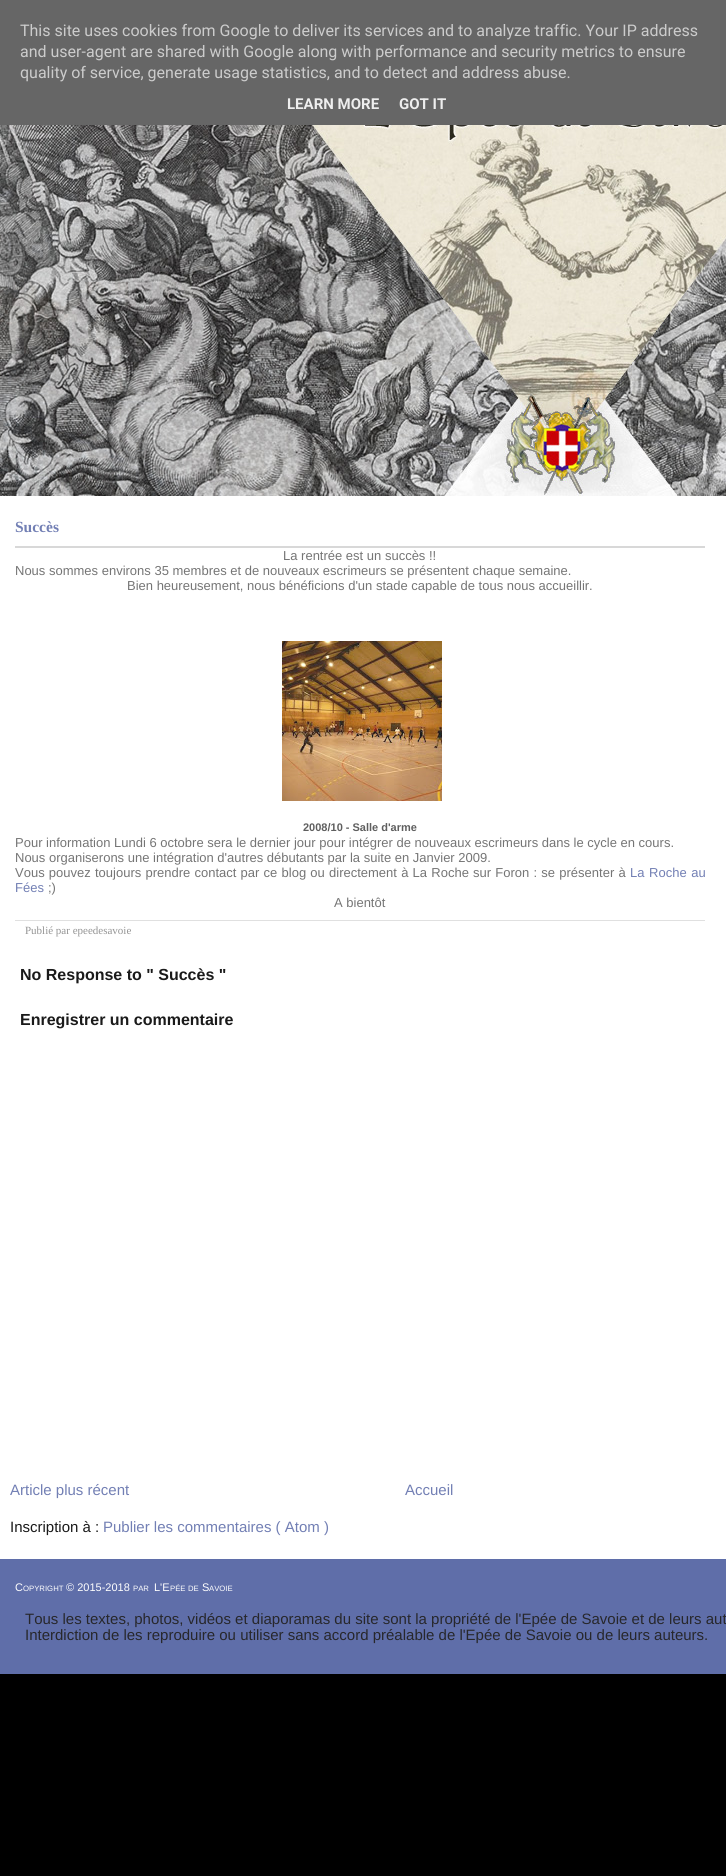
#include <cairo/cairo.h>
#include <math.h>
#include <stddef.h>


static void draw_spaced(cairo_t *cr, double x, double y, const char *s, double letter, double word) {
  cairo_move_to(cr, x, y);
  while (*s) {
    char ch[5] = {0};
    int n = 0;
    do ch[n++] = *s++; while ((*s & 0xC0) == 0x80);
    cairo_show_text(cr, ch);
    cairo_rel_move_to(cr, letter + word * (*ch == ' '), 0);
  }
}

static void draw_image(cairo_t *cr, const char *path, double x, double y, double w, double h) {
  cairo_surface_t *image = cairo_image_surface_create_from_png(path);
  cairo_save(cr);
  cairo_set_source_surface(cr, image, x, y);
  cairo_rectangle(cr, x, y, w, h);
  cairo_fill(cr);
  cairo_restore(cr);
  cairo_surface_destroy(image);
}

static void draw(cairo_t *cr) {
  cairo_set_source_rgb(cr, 0, 0, 0);
  cairo_paint(cr);
  cairo_set_source_rgb(cr, 102 / 255.0, 102 / 255.0, 102 / 255.0);
  cairo_rectangle(cr, 0, 0, 726, 125);
  cairo_fill(cr);
  draw_image(cr, "images/1.png", 0, 125, 726, 371);
  cairo_set_source_rgb(cr, 1, 1, 1);
  cairo_rectangle(cr, 0, 496, 726, 1063);
  cairo_fill(cr);
  cairo_set_source_rgb(cr, 216 / 255.0, 216 / 255.0, 216 / 255.0);
  cairo_rectangle(cr, 15, 546, 690, 2);
  cairo_fill(cr);
  draw_image(cr, "images/2.png", 282, 641, 160, 160);
  cairo_set_source_rgb(cr, 224 / 255.0, 224 / 255.0, 224 / 255.0);
  cairo_rectangle(cr, 15, 920, 690, 1);
  cairo_fill(cr);
  cairo_set_source_rgb(cr, 95 / 255.0, 110 / 255.0, 169 / 255.0);
  cairo_rectangle(cr, 0, 1559, 726, 115);
  cairo_fill(cr);
  cairo_select_font_face(cr, "Roboto", CAIRO_FONT_SLANT_NORMAL, CAIRO_FONT_WEIGHT_NORMAL);
  cairo_set_font_size(cr, 16);
  cairo_set_source_rgb(cr, 204 / 255.0, 204 / 255.0, 204 / 255.0);
  cairo_move_to(cr, 20, 36);
  cairo_show_text(cr, "This site uses cookies from Google to deliver its services and to analyze traffic. Your IP address");
  cairo_move_to(cr, 20, 57);
  cairo_show_text(cr, "and user-agent are shared with Google along with performance and security metrics to ensure");
  cairo_move_to(cr, 20, 78);
  cairo_show_text(cr, "quality of service, generate usage statistics, and to detect and address abuse.");
  cairo_select_font_face(cr, "Roboto", CAIRO_FONT_SLANT_NORMAL, CAIRO_FONT_WEIGHT_BOLD);
  cairo_set_font_size(cr, 15);
  cairo_set_source_rgb(cr, 238 / 255.0, 238 / 255.0, 238 / 255.0);
  cairo_move_to(cr, 287, 109);
  cairo_show_text(cr, "LEARN MORE");
  cairo_move_to(cr, 399, 109);
  cairo_show_text(cr, "GOT IT");
  cairo_select_font_face(cr, "Liberation Serif", CAIRO_FONT_SLANT_NORMAL, CAIRO_FONT_WEIGHT_BOLD);
  cairo_set_font_size(cr, 15.5);
  cairo_set_source_rgb(cr, 114 / 255.0, 127 / 255.0, 180 / 255.0);
  cairo_move_to(cr, 15, 532);
  cairo_show_text(cr, "Succès");
  cairo_select_font_face(cr, "Liberation Sans", CAIRO_FONT_SLANT_NORMAL, CAIRO_FONT_WEIGHT_NORMAL);
  cairo_set_font_size(cr, 13);
  cairo_set_source_rgb(cr, 117 / 255.0, 117 / 255.0, 117 / 255.0);
  cairo_move_to(cr, 283, 560);
  cairo_show_text(cr, "La rentrée est un succès !!");
  cairo_move_to(cr, 15, 575);
  cairo_show_text(cr, "Nous sommes environs 35 membres et de nouveaux escrimeurs se présentent chaque semaine.");
  cairo_move_to(cr, 127, 590);
  cairo_show_text(cr, "Bien heureusement, nous bénéficions d'un stade capable de tous nous accueillir.");
  cairo_select_font_face(cr, "Liberation Sans", CAIRO_FONT_SLANT_NORMAL, CAIRO_FONT_WEIGHT_BOLD);
  cairo_set_font_size(cr, 11);
  cairo_set_source_rgb(cr, 95 / 255.0, 95 / 255.0, 95 / 255.0);
  cairo_move_to(cr, 303, 831);
  cairo_show_text(cr, "2008/10 - Salle d'arme");
  cairo_select_font_face(cr, "Liberation Sans", CAIRO_FONT_SLANT_NORMAL, CAIRO_FONT_WEIGHT_NORMAL);
  cairo_set_font_size(cr, 13);
  cairo_set_source_rgb(cr, 117 / 255.0, 117 / 255.0, 117 / 255.0);
  cairo_move_to(cr, 15, 847);
  cairo_show_text(cr, "Pour information Lundi 6 octobre sera le dernier jour pour intégrer de nouveaux escrimeurs dans le cycle en cours.");
  cairo_move_to(cr, 15, 862);
  cairo_show_text(cr, "Nous organiserons une intégration d'autres débutants par la suite en Janvier 2009.");
  draw_spaced(cr, 15, 877, "Vous pouvez toujours prendre contact par ce blog ou directement à La Roche sur Foron : se présenter à", 0, 0.6);
  cairo_set_source_rgb(cr, 114 / 255.0, 127 / 255.0, 180 / 255.0);
  draw_spaced(cr, 630, 877, "La Roche au", 0, 1);
  cairo_move_to(cr, 15, 892);
  cairo_show_text(cr, "Fées");
  cairo_set_source_rgb(cr, 117 / 255.0, 117 / 255.0, 117 / 255.0);
  cairo_move_to(cr, 48, 892);
  cairo_show_text(cr, ";)");
  cairo_move_to(cr, 334, 907);
  cairo_show_text(cr, "A bientôt");
  cairo_select_font_face(cr, "Liberation Serif", CAIRO_FONT_SLANT_NORMAL, CAIRO_FONT_WEIGHT_NORMAL);
  cairo_set_font_size(cr, 11);
  cairo_set_source_rgb(cr, 148 / 255.0, 148 / 255.0, 148 / 255.0);
  cairo_move_to(cr, 25, 934);
  cairo_show_text(cr, "Publié par epeedesavoie");
  cairo_select_font_face(cr, "Liberation Sans", CAIRO_FONT_SLANT_NORMAL, CAIRO_FONT_WEIGHT_BOLD);
  cairo_set_font_size(cr, 16);
  cairo_set_source_rgb(cr, 26 / 255.0, 26 / 255.0, 26 / 255.0);
  cairo_move_to(cr, 20, 980);
  cairo_show_text(cr, "No Response to \" Succès \"");
  cairo_move_to(cr, 20, 1025);
  cairo_show_text(cr, "Enregistrer un commentaire");
  cairo_select_font_face(cr, "Liberation Sans", CAIRO_FONT_SLANT_NORMAL, CAIRO_FONT_WEIGHT_NORMAL);
  cairo_set_font_size(cr, 15);
  cairo_set_source_rgb(cr, 114 / 255.0, 127 / 255.0, 180 / 255.0);
  cairo_move_to(cr, 10, 1495);
  cairo_show_text(cr, "Article plus récent");
  cairo_move_to(cr, 405, 1495);
  cairo_show_text(cr, "Accueil");
  cairo_set_source_rgb(cr, 26 / 255.0, 26 / 255.0, 26 / 255.0);
  cairo_move_to(cr, 10, 1532);
  cairo_show_text(cr, "Inscription à :");
  cairo_set_source_rgb(cr, 114 / 255.0, 127 / 255.0, 180 / 255.0);
  cairo_move_to(cr, 103, 1532);
  cairo_show_text(cr, "Publier les commentaires ( Atom )");
  cairo_set_font_size(cr, 11);
  cairo_set_source_rgb(cr, 1, 1, 1);
  cairo_move_to(cr, 15, 1591);
  cairo_show_text(cr, "C");
  cairo_set_font_size(cr, 7.75);
  cairo_move_to(cr, 23, 1591);
  cairo_show_text(cr, "OPYRIGHT");
  cairo_set_font_size(cr, 11);
  cairo_move_to(cr, 66, 1591);
  cairo_show_text(cr, "© 2015-2018");
  cairo_set_font_size(cr, 7.75);
  cairo_move_to(cr, 133, 1591);
  cairo_show_text(cr, "PAR");
  cairo_set_font_size(cr, 11);
  cairo_move_to(cr, 154, 1591);
  cairo_show_text(cr, "L'E");
  cairo_set_font_size(cr, 7.75);
  cairo_move_to(cr, 170, 1591);
  cairo_show_text(cr, "PÉE");
  cairo_move_to(cr, 188, 1591);
  cairo_show_text(cr, "DE");
  cairo_set_font_size(cr, 11);
  cairo_move_to(cr, 202, 1591);
  cairo_show_text(cr, "S");
  cairo_set_font_size(cr, 7.75);
  cairo_move_to(cr, 209, 1591);
  cairo_show_text(cr, "AVOIE");
  cairo_set_font_size(cr, 15);
  cairo_set_source_rgb(cr, 39 / 255.0, 39 / 255.0, 43 / 255.0);
  cairo_move_to(cr, 25, 1624);
  cairo_show_text(cr, "Tous les textes, photos, vidéos et diaporamas du site sont la propriété de l'Epée de Savoie et de leurs aut");
  cairo_move_to(cr, 25, 1640);
  cairo_show_text(cr, "Interdiction de les reproduire ou utiliser sans accord préalable de l'Epée de Savoie ou de leurs auteurs.");
}

int main(void) {
  cairo_surface_t *surface = cairo_image_surface_create(CAIRO_FORMAT_RGB24, 726, 1876);
  cairo_t *cr = cairo_create(surface);
  cairo_font_options_t *options = cairo_font_options_create();
  cairo_font_options_set_hint_metrics(options, CAIRO_HINT_METRICS_OFF);
  cairo_font_options_set_hint_style(options, CAIRO_HINT_STYLE_NONE);
  cairo_set_font_options(cr, options);
  cairo_set_miter_limit(cr, 4);
  draw(cr);
  cairo_surface_write_to_png(surface, "out.png");
  cairo_font_options_destroy(options);
  cairo_destroy(cr);
  cairo_surface_destroy(surface);
  return 0;
}
